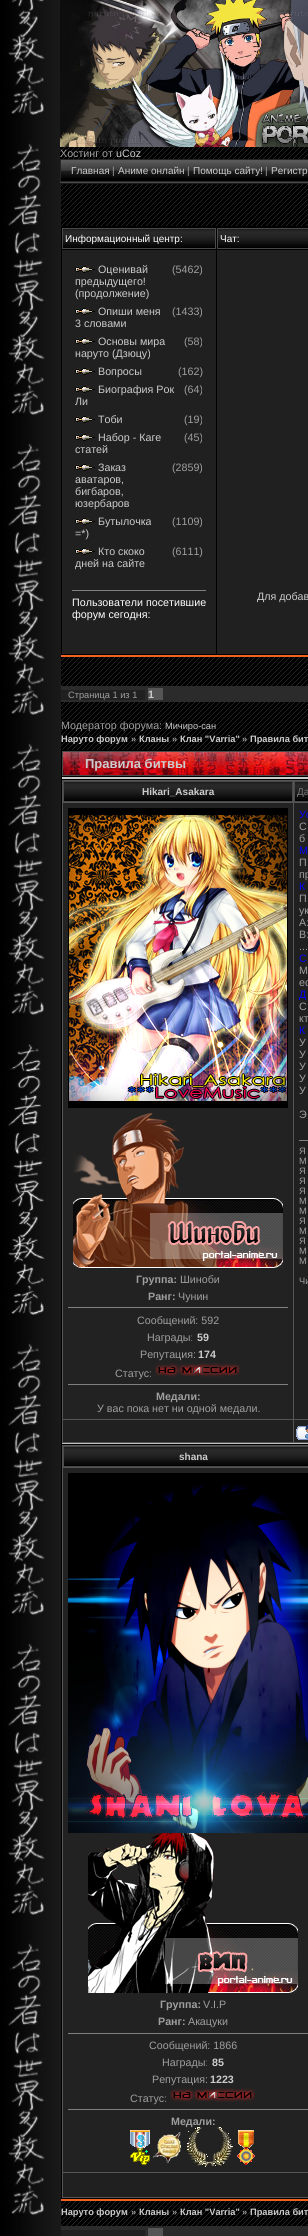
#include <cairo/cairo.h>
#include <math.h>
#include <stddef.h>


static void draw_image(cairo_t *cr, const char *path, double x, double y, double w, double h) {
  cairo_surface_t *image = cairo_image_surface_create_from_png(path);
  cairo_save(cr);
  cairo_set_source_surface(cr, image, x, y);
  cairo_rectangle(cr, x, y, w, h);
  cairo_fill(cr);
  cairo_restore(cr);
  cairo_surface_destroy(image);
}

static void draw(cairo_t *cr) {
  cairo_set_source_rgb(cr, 1, 1, 1);
  cairo_paint(cr);
  draw_image(cr, "images/1.png", 60, 147, 248, 2079);
  draw_image(cr, "images/2.png", 0, 0, 60, 2236);
  draw_image(cr, "images/3.png", 8, 1043, 37, 272);
  draw_image(cr, "images/4.png", 60, 0, 248, 147);
  draw_image(cr, "images/5.png", 61, 160, 247, 21);
  cairo_rectangle(cr, 60.5, 159.5, 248, 22);
  cairo_set_source_rgb(cr, 38 / 255.0, 38 / 255.0, 38 / 255.0);
  cairo_set_line_width(cr, 1);
  cairo_stroke(cr);
  cairo_set_source_rgb(cr, 73 / 255.0, 73 / 255.0, 73 / 255.0);
  cairo_rectangle(cr, 60, 182, 248, 1);
  cairo_fill(cr);
  cairo_rectangle(cr, 60.5, 183.5, 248, 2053);
  cairo_set_source_rgb(cr, 26 / 255.0, 26 / 255.0, 26 / 255.0);
  cairo_stroke(cr);
  cairo_set_source_rgb(cr, 0, 0, 0);
  cairo_rectangle(cr, 61, 226, 247, 429);
  cairo_fill(cr);
  cairo_set_source_rgb(cr, 240 / 255.0, 99 / 255.0, 32 / 255.0);
  cairo_rectangle(cr, 61, 655, 247, 2);
  cairo_fill(cr);
  draw_image(cr, "images/6.png", 63, 229, 152, 18);
  cairo_rectangle(cr, 62.5, 228.5, 153, 20);
  cairo_set_source_rgb(cr, 73 / 255.0, 73 / 255.0, 73 / 255.0);
  cairo_stroke(cr);
  draw_image(cr, "images/7.png", 218, 229, 90, 18);
  cairo_rectangle(cr, 217.5, 228.5, 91, 20);
  cairo_stroke(cr);
  cairo_set_source_rgb(cr, 32 / 255.0, 32 / 255.0, 32 / 255.0);
  cairo_rectangle(cr, 62, 250, 154, 404);
  cairo_fill(cr);
  draw_image(cr, "images/8.png", 75, 266, 20, 7);
  draw_image(cr, "images/8.png", 75, 308, 20, 7);
  draw_image(cr, "images/8.png", 75, 338, 20, 7);
  draw_image(cr, "images/8.png", 75, 368, 20, 7);
  draw_image(cr, "images/8.png", 75, 386, 20, 7);
  draw_image(cr, "images/8.png", 75, 416, 20, 7);
  draw_image(cr, "images/8.png", 75, 434, 20, 7);
  draw_image(cr, "images/8.png", 75, 464, 20, 7);
  draw_image(cr, "images/8.png", 75, 518, 20, 7);
  draw_image(cr, "images/8.png", 75, 548, 20, 7);
  cairo_set_source_rgb(cr, 128 / 255.0, 128 / 255.0, 128 / 255.0);
  cairo_rectangle(cr, 72, 590, 134, 1);
  cairo_fill(cr);
  cairo_set_source_rgb(cr, 32 / 255.0, 32 / 255.0, 32 / 255.0);
  cairo_rectangle(cr, 217, 250, 91, 404);
  cairo_fill(cr);
  cairo_set_source_rgb(cr, 43 / 255.0, 43 / 255.0, 43 / 255.0);
  cairo_rectangle(cr, 61, 686, 247, 16);
  cairo_fill(cr);
  cairo_set_source_rgb(cr, 32 / 255.0, 32 / 255.0, 32 / 255.0);
  cairo_rectangle(cr, 61, 690, 84, 10);
  cairo_fill(cr);
  cairo_set_source_rgb(cr, 85 / 255.0, 85 / 255.0, 85 / 255.0);
  cairo_rectangle(cr, 148, 688, 15, 12);
  cairo_fill(cr);
  cairo_set_source_rgb(cr, 0, 0, 0);
  cairo_rectangle(cr, 61, 750, 247, 1449);
  cairo_fill(cr);
  cairo_set_source_rgb(cr, 240 / 255.0, 99 / 255.0, 32 / 255.0);
  cairo_rectangle(cr, 61, 2199, 247, 2);
  cairo_fill(cr);
  draw_image(cr, "images/9.png", 63, 752, 245, 23);
  cairo_rectangle(cr, 62.5, 751.5, 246, 24);
  cairo_set_source_rgb(cr, 73 / 255.0, 73 / 255.0, 73 / 255.0);
  cairo_stroke(cr);
  cairo_set_source_rgb(cr, 204 / 255.0, 204 / 255.0, 204 / 255.0);
  cairo_rectangle(cr, 62, 777, 246, 2);
  cairo_fill(cr);
  cairo_set_source_rgb(cr, 192 / 255.0, 192 / 255.0, 192 / 255.0);
  cairo_rectangle(cr, 62, 1443, 246, 1);
  cairo_fill(cr);
  cairo_set_source_rgb(cr, 85 / 255.0, 85 / 255.0, 85 / 255.0);
  cairo_rectangle(cr, 62, 780, 246, 663);
  cairo_fill(cr);
  cairo_set_source_rgb(cr, 0, 0, 0);
  cairo_rectangle(cr, 64, 800, 228, 1);
  cairo_fill(cr);
  draw_image(cr, "images/10.png", 64, 782, 228, 18);
  cairo_rectangle(cr, 63.5, 781.5, 229, 20);
  cairo_set_source_rgb(cr, 73 / 255.0, 73 / 255.0, 73 / 255.0);
  cairo_stroke(cr);
  cairo_set_source_rgb(cr, 0, 0, 0);
  cairo_rectangle(cr, 295, 800, 13, 1);
  cairo_fill(cr);
  draw_image(cr, "images/11.png", 295, 782, 13, 18);
  cairo_rectangle(cr, 294.5, 781.5, 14, 20);
  cairo_set_source_rgb(cr, 73 / 255.0, 73 / 255.0, 73 / 255.0);
  cairo_stroke(cr);
  cairo_set_source_rgb(cr, 32 / 255.0, 32 / 255.0, 32 / 255.0);
  cairo_rectangle(cr, 294, 803, 14, 616);
  cairo_fill(cr);
  cairo_set_source_rgb(cr, 128 / 255.0, 128 / 255.0, 128 / 255.0);
  cairo_rectangle(cr, 299, 1140, 9, 1);
  cairo_fill(cr);
  cairo_set_source_rgb(cr, 34 / 255.0, 34 / 255.0, 34 / 255.0);
  cairo_rectangle(cr, 63, 803, 230, 616);
  cairo_fill(cr);
  draw_image(cr, "images/12.png", 68, 808, 220, 300);
  draw_image(cr, "images/13.png", 73, 1113, 210, 155);
  cairo_set_source_rgb(cr, 128 / 255.0, 128 / 255.0, 128 / 255.0);
  cairo_rectangle(cr, 68, 1307, 220, 1);
  cairo_fill(cr);
  draw_image(cr, "images/14.png", 155, 1363, 85, 14);
  cairo_rectangle(cr, 68, 1384, 220, 1);
  cairo_fill(cr);
  cairo_set_source_rgb(cr, 32 / 255.0, 32 / 255.0, 32 / 255.0);
  cairo_rectangle(cr, 63, 1420, 230, 22);
  cairo_fill(cr);
  cairo_rectangle(cr, 294, 1420, 14, 22);
  cairo_fill(cr);
  draw_image(cr, "images/15.png", 296, 1425, 12, 15);
  cairo_set_source_rgb(cr, 85 / 255.0, 85 / 255.0, 85 / 255.0);
  cairo_rectangle(cr, 62, 1445, 246, 753);
  cairo_fill(cr);
  cairo_set_source_rgb(cr, 0, 0, 0);
  cairo_rectangle(cr, 64, 1465, 244, 1);
  cairo_fill(cr);
  draw_image(cr, "images/16.png", 64, 1447, 244, 18);
  cairo_rectangle(cr, 63.5, 1446.5, 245, 20);
  cairo_set_source_rgb(cr, 73 / 255.0, 73 / 255.0, 73 / 255.0);
  cairo_stroke(cr);
  cairo_set_source_rgb(cr, 34 / 255.0, 34 / 255.0, 34 / 255.0);
  cairo_rectangle(cr, 63, 1468, 245, 704);
  cairo_fill(cr);
  draw_image(cr, "images/17.png", 68, 1473, 240, 360);
  draw_image(cr, "images/18.png", 88, 1833, 210, 160);
  cairo_set_source_rgb(cr, 128 / 255.0, 128 / 255.0, 128 / 255.0);
  cairo_rectangle(cr, 68, 2033, 240, 1);
  cairo_fill(cr);
  draw_image(cr, "images/14.png", 170, 2088, 85, 14);
  cairo_rectangle(cr, 68, 2109, 240, 1);
  cairo_fill(cr);
  draw_image(cr, "images/19.png", 130, 2130, 20, 35);
  draw_image(cr, "images/20.png", 153, 2132, 28, 31);
  draw_image(cr, "images/22.png", 237, 2130, 18, 35);
  cairo_set_source_rgb(cr, 32 / 255.0, 32 / 255.0, 32 / 255.0);
  cairo_rectangle(cr, 63, 2173, 245, 24);
  cairo_fill(cr);
  cairo_set_source_rgb(cr, 43 / 255.0, 43 / 255.0, 43 / 255.0);
  cairo_rectangle(cr, 61, 2226, 247, 10);
  cairo_fill(cr);
  cairo_set_source_rgb(cr, 32 / 255.0, 32 / 255.0, 32 / 255.0);
  cairo_rectangle(cr, 61, 2230, 84, 6);
  cairo_fill(cr);
  cairo_set_source_rgb(cr, 85 / 255.0, 85 / 255.0, 85 / 255.0);
  cairo_rectangle(cr, 148, 2228, 15, 8);
  cairo_fill(cr);
  cairo_select_font_face(cr, "Liberation Sans", CAIRO_FONT_SLANT_NORMAL, CAIRO_FONT_WEIGHT_NORMAL);
  cairo_set_font_size(cr, 10.7);
  cairo_set_source_rgb(cr, 159 / 255.0, 159 / 255.0, 159 / 255.0);
  cairo_move_to(cr, 60, 157);
  cairo_show_text(cr, "Хостинг от");
  cairo_set_source_rgb(cr, 204 / 255.0, 204 / 255.0, 204 / 255.0);
  cairo_move_to(cr, 116, 157);
  cairo_show_text(cr, "uCoz");
  cairo_set_font_size(cr, 10);
  cairo_move_to(cr, 71, 174);
  cairo_show_text(cr, "Главная");
  cairo_set_source_rgb(cr, 159 / 255.0, 159 / 255.0, 159 / 255.0);
  cairo_move_to(cr, 112, 174);
  cairo_show_text(cr, "|");
  cairo_set_source_rgb(cr, 204 / 255.0, 204 / 255.0, 204 / 255.0);
  cairo_move_to(cr, 118, 174);
  cairo_show_text(cr, "Аниме онлайн");
  cairo_set_source_rgb(cr, 159 / 255.0, 159 / 255.0, 159 / 255.0);
  cairo_move_to(cr, 187, 174);
  cairo_show_text(cr, "|");
  cairo_set_source_rgb(cr, 204 / 255.0, 204 / 255.0, 204 / 255.0);
  cairo_move_to(cr, 193, 174);
  cairo_show_text(cr, "Помощь сайту!");
  cairo_set_source_rgb(cr, 159 / 255.0, 159 / 255.0, 159 / 255.0);
  cairo_move_to(cr, 265, 174);
  cairo_show_text(cr, "|");
  cairo_set_source_rgb(cr, 204 / 255.0, 204 / 255.0, 204 / 255.0);
  cairo_move_to(cr, 271, 174);
  cairo_show_text(cr, "Регистр");
  cairo_set_source_rgb(cr, 1, 1, 1);
  cairo_move_to(cr, 65, 242);
  cairo_show_text(cr, "Информационный центр:");
  cairo_move_to(cr, 220, 242);
  cairo_show_text(cr, "Чат:");
  cairo_set_font_size(cr, 10.7);
  cairo_set_source_rgb(cr, 204 / 255.0, 204 / 255.0, 204 / 255.0);
  cairo_move_to(cr, 98, 273);
  cairo_show_text(cr, "Оценивай");
  cairo_move_to(cr, 75, 285);
  cairo_show_text(cr, "предыдущего!");
  cairo_move_to(cr, 75, 297);
  cairo_show_text(cr, "(продолжение)");
  cairo_set_source_rgb(cr, 159 / 255.0, 159 / 255.0, 159 / 255.0);
  cairo_move_to(cr, 172, 273);
  cairo_show_text(cr, "(5462)");
  cairo_set_source_rgb(cr, 204 / 255.0, 204 / 255.0, 204 / 255.0);
  cairo_move_to(cr, 98, 315);
  cairo_show_text(cr, "Опиши меня");
  cairo_move_to(cr, 75, 327);
  cairo_show_text(cr, "3 словами");
  cairo_set_source_rgb(cr, 159 / 255.0, 159 / 255.0, 159 / 255.0);
  cairo_move_to(cr, 172, 315);
  cairo_show_text(cr, "(1433)");
  cairo_set_source_rgb(cr, 204 / 255.0, 204 / 255.0, 204 / 255.0);
  cairo_move_to(cr, 98, 345);
  cairo_show_text(cr, "Основы мира");
  cairo_move_to(cr, 75, 357);
  cairo_show_text(cr, "наруто (Дзюцу)");
  cairo_set_source_rgb(cr, 159 / 255.0, 159 / 255.0, 159 / 255.0);
  cairo_move_to(cr, 184, 345);
  cairo_show_text(cr, "(58)");
  cairo_set_source_rgb(cr, 204 / 255.0, 204 / 255.0, 204 / 255.0);
  cairo_move_to(cr, 98, 375);
  cairo_show_text(cr, "Вопросы");
  cairo_set_source_rgb(cr, 159 / 255.0, 159 / 255.0, 159 / 255.0);
  cairo_move_to(cr, 178, 375);
  cairo_show_text(cr, "(162)");
  cairo_set_source_rgb(cr, 204 / 255.0, 204 / 255.0, 204 / 255.0);
  cairo_move_to(cr, 98, 393);
  cairo_show_text(cr, "Биография Рок");
  cairo_move_to(cr, 75, 405);
  cairo_show_text(cr, "Ли");
  cairo_set_source_rgb(cr, 159 / 255.0, 159 / 255.0, 159 / 255.0);
  cairo_move_to(cr, 184, 393);
  cairo_show_text(cr, "(64)");
  cairo_set_source_rgb(cr, 204 / 255.0, 204 / 255.0, 204 / 255.0);
  cairo_move_to(cr, 98, 423);
  cairo_show_text(cr, "Тоби");
  cairo_set_source_rgb(cr, 159 / 255.0, 159 / 255.0, 159 / 255.0);
  cairo_move_to(cr, 184, 423);
  cairo_show_text(cr, "(19)");
  cairo_set_source_rgb(cr, 204 / 255.0, 204 / 255.0, 204 / 255.0);
  cairo_move_to(cr, 98, 441);
  cairo_show_text(cr, "Набор - Каге");
  cairo_move_to(cr, 75, 453);
  cairo_show_text(cr, "статей");
  cairo_set_source_rgb(cr, 159 / 255.0, 159 / 255.0, 159 / 255.0);
  cairo_move_to(cr, 184, 441);
  cairo_show_text(cr, "(45)");
  cairo_set_source_rgb(cr, 204 / 255.0, 204 / 255.0, 204 / 255.0);
  cairo_move_to(cr, 98, 471);
  cairo_show_text(cr, "Заказ");
  cairo_move_to(cr, 75, 483);
  cairo_show_text(cr, "аватаров,");
  cairo_move_to(cr, 75, 495);
  cairo_show_text(cr, "бигбаров,");
  cairo_move_to(cr, 75, 507);
  cairo_show_text(cr, "юзербаров");
  cairo_set_source_rgb(cr, 159 / 255.0, 159 / 255.0, 159 / 255.0);
  cairo_move_to(cr, 172, 471);
  cairo_show_text(cr, "(2859)");
  cairo_set_source_rgb(cr, 204 / 255.0, 204 / 255.0, 204 / 255.0);
  cairo_move_to(cr, 98, 525);
  cairo_show_text(cr, "Бутылочка");
  cairo_move_to(cr, 75, 537);
  cairo_show_text(cr, "=*)");
  cairo_set_source_rgb(cr, 159 / 255.0, 159 / 255.0, 159 / 255.0);
  cairo_move_to(cr, 172, 525);
  cairo_show_text(cr, "(1109)");
  cairo_set_source_rgb(cr, 204 / 255.0, 204 / 255.0, 204 / 255.0);
  cairo_move_to(cr, 98, 555);
  cairo_show_text(cr, "Кто скоко");
  cairo_move_to(cr, 75, 567);
  cairo_show_text(cr, "дней на сайте");
  cairo_set_source_rgb(cr, 159 / 255.0, 159 / 255.0, 159 / 255.0);
  cairo_move_to(cr, 172, 555);
  cairo_show_text(cr, "(6111)");
  cairo_set_source_rgb(cr, 1, 1, 1);
  cairo_move_to(cr, 72, 606);
  cairo_show_text(cr, "Пользователи посетившие");
  cairo_move_to(cr, 72, 618);
  cairo_show_text(cr, "форум сегодня:");
  cairo_set_source_rgb(cr, 204 / 255.0, 204 / 255.0, 204 / 255.0);
  cairo_move_to(cr, 257, 600);
  cairo_show_text(cr, "Для добав");
  cairo_set_font_size(cr, 9.25);
  cairo_set_source_rgb(cr, 159 / 255.0, 159 / 255.0, 159 / 255.0);
  cairo_move_to(cr, 68, 698);
  cairo_show_text(cr, "Страница 1 из 1");
  cairo_select_font_face(cr, "Liberation Sans", CAIRO_FONT_SLANT_NORMAL, CAIRO_FONT_WEIGHT_BOLD);
  cairo_set_font_size(cr, 10.7);
  cairo_set_source_rgb(cr, 204 / 255.0, 204 / 255.0, 204 / 255.0);
  cairo_move_to(cr, 148, 698);
  cairo_show_text(cr, "1");
  cairo_select_font_face(cr, "Liberation Sans", CAIRO_FONT_SLANT_NORMAL, CAIRO_FONT_WEIGHT_NORMAL);
  cairo_set_source_rgb(cr, 159 / 255.0, 159 / 255.0, 159 / 255.0);
  cairo_move_to(cr, 61, 729);
  cairo_show_text(cr, "Модератор форума:");
  cairo_set_font_size(cr, 9.25);
  cairo_set_source_rgb(cr, 204 / 255.0, 204 / 255.0, 204 / 255.0);
  cairo_move_to(cr, 165, 729);
  cairo_show_text(cr, "Мичиро-сан");
  cairo_select_font_face(cr, "Liberation Sans", CAIRO_FONT_SLANT_NORMAL, CAIRO_FONT_WEIGHT_BOLD);
  cairo_move_to(cr, 61, 742);
  cairo_show_text(cr, "Наруто форум");
  cairo_set_source_rgb(cr, 159 / 255.0, 159 / 255.0, 159 / 255.0);
  cairo_move_to(cr, 131, 742);
  cairo_show_text(cr, "»");
  cairo_set_source_rgb(cr, 204 / 255.0, 204 / 255.0, 204 / 255.0);
  cairo_move_to(cr, 139, 742);
  cairo_show_text(cr, "Кланы");
  cairo_set_source_rgb(cr, 159 / 255.0, 159 / 255.0, 159 / 255.0);
  cairo_move_to(cr, 172, 742);
  cairo_show_text(cr, "»");
  cairo_set_source_rgb(cr, 204 / 255.0, 204 / 255.0, 204 / 255.0);
  cairo_move_to(cr, 180, 742);
  cairo_show_text(cr, "Клан \"Varria\"");
  cairo_set_source_rgb(cr, 159 / 255.0, 159 / 255.0, 159 / 255.0);
  cairo_move_to(cr, 242, 742);
  cairo_show_text(cr, "»");
  cairo_set_source_rgb(cr, 204 / 255.0, 204 / 255.0, 204 / 255.0);
  cairo_move_to(cr, 250, 742);
  cairo_show_text(cr, "Правила бит");
  cairo_set_font_size(cr, 13);
  cairo_move_to(cr, 85, 768);
  cairo_show_text(cr, "Правила битвы");
  cairo_set_font_size(cr, 10);
  cairo_move_to(cr, 142, 795);
  cairo_show_text(cr, "Hikari_Asakara");
  cairo_select_font_face(cr, "Liberation Sans", CAIRO_FONT_SLANT_NORMAL, CAIRO_FONT_WEIGHT_NORMAL);
  cairo_set_source_rgb(cr, 118 / 255.0, 118 / 255.0, 118 / 255.0);
  cairo_move_to(cr, 297, 795);
  cairo_show_text(cr, "Да");
  cairo_set_font_size(cr, 10.7);
  cairo_set_source_rgb(cr, 0, 0, 1);
  cairo_move_to(cr, 299, 818);
  cairo_show_text(cr, "Ус");
  cairo_set_source_rgb(cr, 159 / 255.0, 159 / 255.0, 159 / 255.0);
  cairo_move_to(cr, 299, 830);
  cairo_show_text(cr, "С");
  cairo_move_to(cr, 299, 842);
  cairo_show_text(cr, "б");
  cairo_set_source_rgb(cr, 0, 0, 1);
  cairo_move_to(cr, 299, 854);
  cairo_show_text(cr, "М");
  cairo_set_source_rgb(cr, 159 / 255.0, 159 / 255.0, 159 / 255.0);
  cairo_move_to(cr, 299, 866);
  cairo_show_text(cr, "П");
  cairo_move_to(cr, 299, 878);
  cairo_show_text(cr, "пр");
  cairo_set_source_rgb(cr, 0, 0, 1);
  cairo_move_to(cr, 299, 890);
  cairo_show_text(cr, "К");
  cairo_set_source_rgb(cr, 159 / 255.0, 159 / 255.0, 159 / 255.0);
  cairo_move_to(cr, 299, 902);
  cairo_show_text(cr, "П");
  cairo_move_to(cr, 299, 914);
  cairo_show_text(cr, "ук");
  cairo_move_to(cr, 299, 926);
  cairo_show_text(cr, "А:");
  cairo_move_to(cr, 299, 938);
  cairo_show_text(cr, "В:");
  cairo_move_to(cr, 299, 950);
  cairo_show_text(cr, "...");
  cairo_set_source_rgb(cr, 0, 0, 1);
  cairo_move_to(cr, 299, 962);
  cairo_show_text(cr, "С");
  cairo_set_source_rgb(cr, 159 / 255.0, 159 / 255.0, 159 / 255.0);
  cairo_move_to(cr, 299, 974);
  cairo_show_text(cr, "М");
  cairo_move_to(cr, 299, 986);
  cairo_show_text(cr, "ес");
  cairo_set_source_rgb(cr, 0, 0, 1);
  cairo_move_to(cr, 299, 998);
  cairo_show_text(cr, "Д");
  cairo_set_source_rgb(cr, 159 / 255.0, 159 / 255.0, 159 / 255.0);
  cairo_move_to(cr, 299, 1010);
  cairo_show_text(cr, "С");
  cairo_move_to(cr, 299, 1022);
  cairo_show_text(cr, "кт");
  cairo_set_source_rgb(cr, 0, 0, 1);
  cairo_move_to(cr, 299, 1034);
  cairo_show_text(cr, "К");
  cairo_set_source_rgb(cr, 159 / 255.0, 159 / 255.0, 159 / 255.0);
  cairo_move_to(cr, 299, 1046);
  cairo_show_text(cr, "У");
  cairo_move_to(cr, 299, 1058);
  cairo_show_text(cr, "У");
  cairo_move_to(cr, 299, 1070);
  cairo_show_text(cr, "У");
  cairo_move_to(cr, 299, 1082);
  cairo_show_text(cr, "У");
  cairo_move_to(cr, 299, 1094);
  cairo_show_text(cr, "У");
  cairo_move_to(cr, 299, 1118);
  cairo_show_text(cr, "Э");
  cairo_set_font_size(cr, 9.25);
  cairo_move_to(cr, 299, 1154);
  cairo_show_text(cr, "Я");
  cairo_move_to(cr, 299, 1164);
  cairo_show_text(cr, "М");
  cairo_move_to(cr, 299, 1174);
  cairo_show_text(cr, "Я");
  cairo_move_to(cr, 299, 1184);
  cairo_show_text(cr, "Я");
  cairo_move_to(cr, 299, 1194);
  cairo_show_text(cr, "Я");
  cairo_move_to(cr, 299, 1204);
  cairo_show_text(cr, "М");
  cairo_move_to(cr, 299, 1214);
  cairo_show_text(cr, "М");
  cairo_move_to(cr, 299, 1224);
  cairo_show_text(cr, "Я");
  cairo_move_to(cr, 299, 1234);
  cairo_show_text(cr, "М");
  cairo_move_to(cr, 299, 1244);
  cairo_show_text(cr, "Я");
  cairo_move_to(cr, 299, 1254);
  cairo_show_text(cr, "М");
  cairo_move_to(cr, 299, 1264);
  cairo_show_text(cr, "М");
  cairo_move_to(cr, 299, 1284);
  cairo_show_text(cr, "Чи");
  cairo_select_font_face(cr, "Liberation Sans", CAIRO_FONT_SLANT_NORMAL, CAIRO_FONT_WEIGHT_BOLD);
  cairo_set_font_size(cr, 10.7);
  cairo_move_to(cr, 136, 1283);
  cairo_show_text(cr, "Группа:");
  cairo_select_font_face(cr, "Liberation Sans", CAIRO_FONT_SLANT_NORMAL, CAIRO_FONT_WEIGHT_NORMAL);
  cairo_move_to(cr, 180, 1283);
  cairo_show_text(cr, "Шиноби");
  cairo_select_font_face(cr, "Liberation Sans", CAIRO_FONT_SLANT_NORMAL, CAIRO_FONT_WEIGHT_BOLD);
  cairo_move_to(cr, 148, 1300);
  cairo_show_text(cr, "Ранг:");
  cairo_select_font_face(cr, "Liberation Sans", CAIRO_FONT_SLANT_NORMAL, CAIRO_FONT_WEIGHT_NORMAL);
  cairo_move_to(cr, 178, 1300);
  cairo_show_text(cr, "Чунин");
  cairo_move_to(cr, 137, 1324);
  cairo_show_text(cr, "Сообщений: 592");
  cairo_move_to(cr, 147, 1341);
  cairo_show_text(cr, "Награды:");
  cairo_select_font_face(cr, "Liberation Sans", CAIRO_FONT_SLANT_NORMAL, CAIRO_FONT_WEIGHT_BOLD);
  cairo_set_source_rgb(cr, 204 / 255.0, 204 / 255.0, 204 / 255.0);
  cairo_move_to(cr, 197, 1341);
  cairo_show_text(cr, "59");
  cairo_select_font_face(cr, "Liberation Sans", CAIRO_FONT_SLANT_NORMAL, CAIRO_FONT_WEIGHT_NORMAL);
  cairo_set_source_rgb(cr, 159 / 255.0, 159 / 255.0, 159 / 255.0);
  cairo_move_to(cr, 140, 1358);
  cairo_show_text(cr, "Репутация:");
  cairo_select_font_face(cr, "Liberation Sans", CAIRO_FONT_SLANT_NORMAL, CAIRO_FONT_WEIGHT_BOLD);
  cairo_set_source_rgb(cr, 204 / 255.0, 204 / 255.0, 204 / 255.0);
  cairo_move_to(cr, 198, 1358);
  cairo_show_text(cr, "174");
  cairo_select_font_face(cr, "Liberation Sans", CAIRO_FONT_SLANT_NORMAL, CAIRO_FONT_WEIGHT_NORMAL);
  cairo_set_source_rgb(cr, 159 / 255.0, 159 / 255.0, 159 / 255.0);
  cairo_move_to(cr, 115, 1377);
  cairo_show_text(cr, "Статус:");
  cairo_select_font_face(cr, "Liberation Sans", CAIRO_FONT_SLANT_NORMAL, CAIRO_FONT_WEIGHT_BOLD);
  cairo_move_to(cr, 156, 1400);
  cairo_show_text(cr, "Медали:");
  cairo_select_font_face(cr, "Liberation Sans", CAIRO_FONT_SLANT_NORMAL, CAIRO_FONT_WEIGHT_NORMAL);
  cairo_move_to(cr, 97, 1412);
  cairo_show_text(cr, "У вас пока нет ни одной медали.");
  cairo_select_font_face(cr, "Liberation Sans", CAIRO_FONT_SLANT_NORMAL, CAIRO_FONT_WEIGHT_BOLD);
  cairo_set_font_size(cr, 10);
  cairo_set_source_rgb(cr, 204 / 255.0, 204 / 255.0, 204 / 255.0);
  cairo_move_to(cr, 179, 1460);
  cairo_show_text(cr, "shana");
  cairo_set_font_size(cr, 10.7);
  cairo_set_source_rgb(cr, 159 / 255.0, 159 / 255.0, 159 / 255.0);
  cairo_move_to(cr, 160, 2008);
  cairo_show_text(cr, "Группа:");
  cairo_select_font_face(cr, "Liberation Sans", CAIRO_FONT_SLANT_NORMAL, CAIRO_FONT_WEIGHT_NORMAL);
  cairo_move_to(cr, 203, 2008);
  cairo_show_text(cr, "V.I.P");
  cairo_select_font_face(cr, "Liberation Sans", CAIRO_FONT_SLANT_NORMAL, CAIRO_FONT_WEIGHT_BOLD);
  cairo_move_to(cr, 158, 2025);
  cairo_show_text(cr, "Ранг:");
  cairo_select_font_face(cr, "Liberation Sans", CAIRO_FONT_SLANT_NORMAL, CAIRO_FONT_WEIGHT_NORMAL);
  cairo_move_to(cr, 188, 2025);
  cairo_show_text(cr, "Акацуки");
  cairo_move_to(cr, 149, 2049);
  cairo_show_text(cr, "Сообщений: 1866");
  cairo_move_to(cr, 162, 2066);
  cairo_show_text(cr, "Награды:");
  cairo_select_font_face(cr, "Liberation Sans", CAIRO_FONT_SLANT_NORMAL, CAIRO_FONT_WEIGHT_BOLD);
  cairo_set_source_rgb(cr, 204 / 255.0, 204 / 255.0, 204 / 255.0);
  cairo_move_to(cr, 212, 2066);
  cairo_show_text(cr, "85");
  cairo_select_font_face(cr, "Liberation Sans", CAIRO_FONT_SLANT_NORMAL, CAIRO_FONT_WEIGHT_NORMAL);
  cairo_set_source_rgb(cr, 159 / 255.0, 159 / 255.0, 159 / 255.0);
  cairo_move_to(cr, 152, 2083);
  cairo_show_text(cr, "Репутация:");
  cairo_select_font_face(cr, "Liberation Sans", CAIRO_FONT_SLANT_NORMAL, CAIRO_FONT_WEIGHT_BOLD);
  cairo_set_source_rgb(cr, 204 / 255.0, 204 / 255.0, 204 / 255.0);
  cairo_move_to(cr, 210, 2083);
  cairo_show_text(cr, "1223");
  cairo_select_font_face(cr, "Liberation Sans", CAIRO_FONT_SLANT_NORMAL, CAIRO_FONT_WEIGHT_NORMAL);
  cairo_set_source_rgb(cr, 159 / 255.0, 159 / 255.0, 159 / 255.0);
  cairo_move_to(cr, 130, 2102);
  cairo_show_text(cr, "Статус:");
  cairo_select_font_face(cr, "Liberation Sans", CAIRO_FONT_SLANT_NORMAL, CAIRO_FONT_WEIGHT_BOLD);
  cairo_move_to(cr, 171, 2125);
  cairo_show_text(cr, "Медали:");
  draw_image(cr, "images/21.png", 187, 2127, 46, 40);
  cairo_set_font_size(cr, 9.25);
  cairo_set_source_rgb(cr, 204 / 255.0, 204 / 255.0, 204 / 255.0);
  cairo_move_to(cr, 61, 2215);
  cairo_show_text(cr, "Наруто форум");
  cairo_set_source_rgb(cr, 159 / 255.0, 159 / 255.0, 159 / 255.0);
  cairo_move_to(cr, 131, 2215);
  cairo_show_text(cr, "»");
  cairo_set_source_rgb(cr, 204 / 255.0, 204 / 255.0, 204 / 255.0);
  cairo_move_to(cr, 139, 2215);
  cairo_show_text(cr, "Кланы");
  cairo_set_source_rgb(cr, 159 / 255.0, 159 / 255.0, 159 / 255.0);
  cairo_move_to(cr, 172, 2215);
  cairo_show_text(cr, "»");
  cairo_set_source_rgb(cr, 204 / 255.0, 204 / 255.0, 204 / 255.0);
  cairo_move_to(cr, 180, 2215);
  cairo_show_text(cr, "Клан \"Varria\"");
  cairo_set_source_rgb(cr, 159 / 255.0, 159 / 255.0, 159 / 255.0);
  cairo_move_to(cr, 242, 2215);
  cairo_show_text(cr, "»");
  cairo_set_source_rgb(cr, 204 / 255.0, 204 / 255.0, 204 / 255.0);
  cairo_move_to(cr, 250, 2215);
  cairo_show_text(cr, "Правила бит");
}

int main(void) {
  cairo_surface_t *surface = cairo_image_surface_create(CAIRO_FORMAT_RGB24, 308, 2236);
  cairo_t *cr = cairo_create(surface);
  cairo_font_options_t *options = cairo_font_options_create();
  cairo_font_options_set_hint_metrics(options, CAIRO_HINT_METRICS_OFF);
  cairo_font_options_set_hint_style(options, CAIRO_HINT_STYLE_NONE);
  cairo_set_font_options(cr, options);
  cairo_set_miter_limit(cr, 4);
  draw(cr);
  cairo_surface_write_to_png(surface, "out.png");
  cairo_font_options_destroy(options);
  cairo_destroy(cr);
  cairo_surface_destroy(surface);
  return 0;
}
